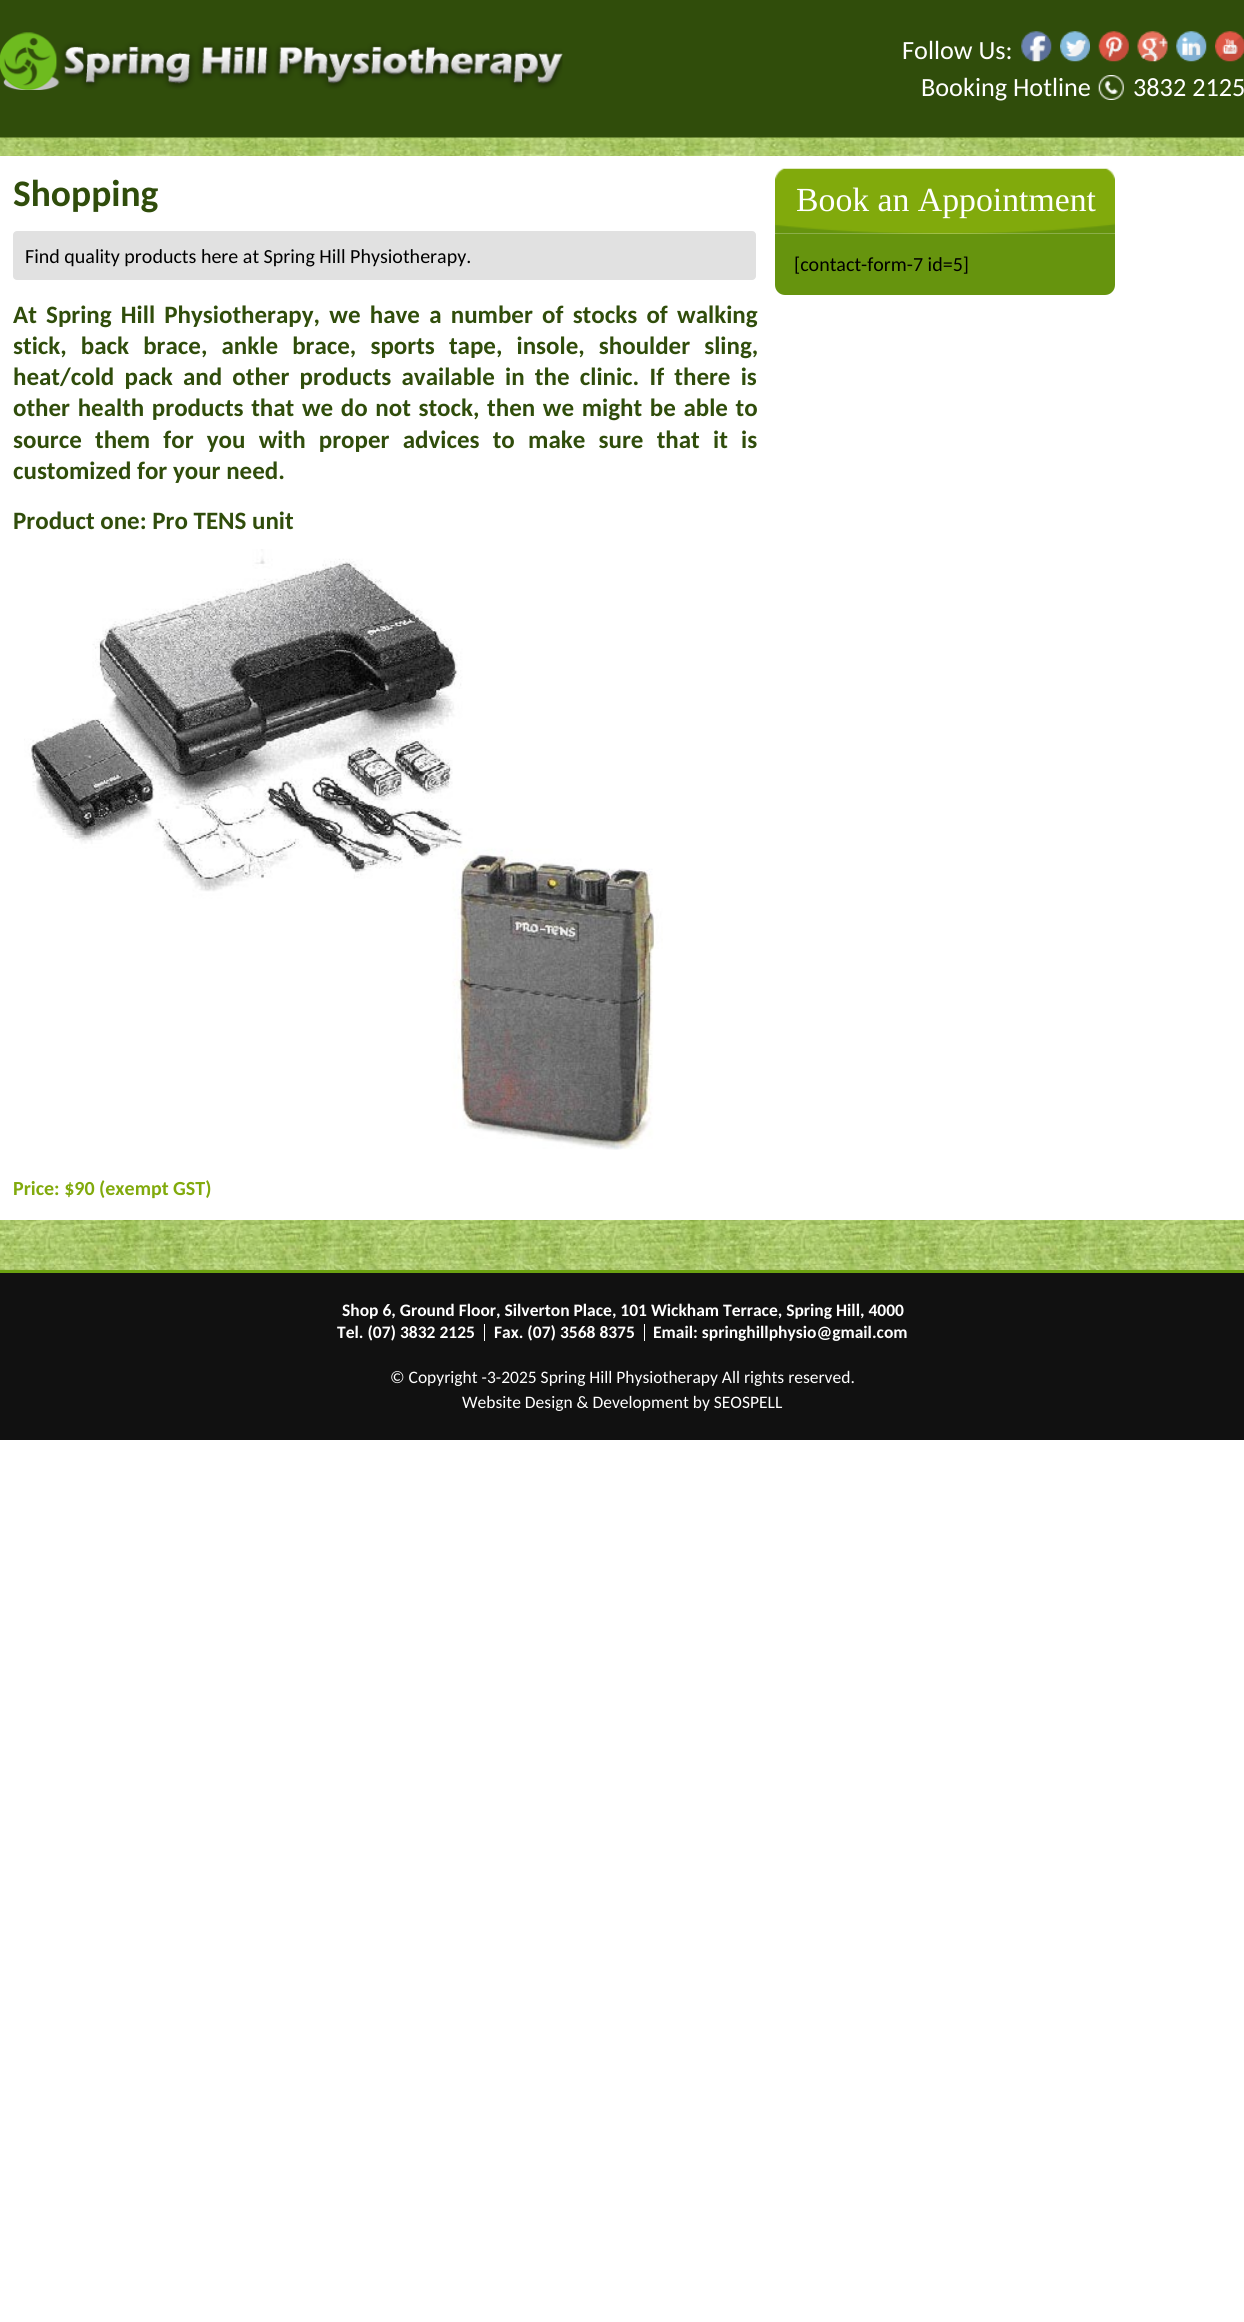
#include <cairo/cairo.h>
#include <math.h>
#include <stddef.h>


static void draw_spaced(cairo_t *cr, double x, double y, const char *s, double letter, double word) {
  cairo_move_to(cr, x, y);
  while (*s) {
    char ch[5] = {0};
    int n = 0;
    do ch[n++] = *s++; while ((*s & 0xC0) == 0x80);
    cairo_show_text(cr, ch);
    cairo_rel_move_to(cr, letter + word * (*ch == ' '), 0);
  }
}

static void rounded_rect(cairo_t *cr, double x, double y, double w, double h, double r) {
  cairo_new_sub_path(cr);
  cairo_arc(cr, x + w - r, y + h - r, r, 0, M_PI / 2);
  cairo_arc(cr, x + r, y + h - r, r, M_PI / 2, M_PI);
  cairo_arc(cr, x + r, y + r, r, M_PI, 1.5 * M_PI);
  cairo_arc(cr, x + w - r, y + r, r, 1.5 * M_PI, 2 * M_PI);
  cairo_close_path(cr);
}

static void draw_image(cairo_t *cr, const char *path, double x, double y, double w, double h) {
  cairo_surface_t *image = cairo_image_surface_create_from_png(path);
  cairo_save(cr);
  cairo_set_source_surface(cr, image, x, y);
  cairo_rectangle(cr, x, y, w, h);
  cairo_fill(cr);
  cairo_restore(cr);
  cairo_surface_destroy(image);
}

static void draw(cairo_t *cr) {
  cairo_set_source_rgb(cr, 1, 1, 1);
  cairo_paint(cr);
  cairo_set_source_rgb(cr, 48 / 255.0, 77 / 255.0, 11 / 255.0);
  cairo_rectangle(cr, 0, 0, 1244, 138);
  cairo_fill(cr);
  draw_image(cr, "images/1.png", 0, 32, 563, 58);
  draw_image(cr, "images/2.png", 1021, 31, 31, 31);
  draw_image(cr, "images/3.png", 1060, 31, 30, 31);
  draw_image(cr, "images/4.png", 1098, 31, 31, 31);
  draw_image(cr, "images/5.png", 1137, 31, 31, 31);
  draw_image(cr, "images/6.png", 1176, 31, 31, 31);
  draw_image(cr, "images/7.png", 1215, 31, 29, 31);
  draw_image(cr, "images/8.png", 1098, 75, 26, 25);
  draw_image(cr, "images/9.png", 0, 137, 1244, 1133);
  cairo_set_source_rgb(cr, 1, 1, 1);
  cairo_rectangle(cr, 0, 156, 1244, 1064);
  cairo_fill(cr);
  cairo_set_source_rgb(cr, 225 / 255.0, 225 / 255.0, 225 / 255.0);
  rounded_rect(cr, 13, 231, 743, 49, 4);
  cairo_fill(cr);
  draw_image(cr, "images/10.png", 24, 549, 639, 601);
  draw_image(cr, "images/11.png", 775, 168, 340, 66);
  cairo_set_source_rgb(cr, 102 / 255.0, 148 / 255.0, 14 / 255.0);
  cairo_new_path(cr);
  cairo_move_to(cr, 775, 234);
  cairo_line_to(cr, 1115, 234);
  cairo_line_to(cr, 1115, 285);
  cairo_curve_to(cr, 1115, 290.5, 1110.5, 295, 1105, 295);
  cairo_line_to(cr, 785, 295);
  cairo_curve_to(cr, 779.5, 295, 775, 290.5, 775, 285);
  cairo_close_path(cr);
  cairo_fill(cr);
  cairo_set_source_rgb(cr, 17 / 255.0, 17 / 255.0, 17 / 255.0);
  cairo_rectangle(cr, 0, 1273, 1244, 167);
  cairo_fill(cr);
  cairo_set_source_rgb(cr, 108 / 255.0, 161 / 255.0, 17 / 255.0);
  cairo_rectangle(cr, 0, 1270, 1244, 3);
  cairo_fill(cr);
  cairo_set_source_rgb(cr, 1, 1, 1);
  cairo_rectangle(cr, 484, 1324, 1, 17);
  cairo_fill(cr);
  cairo_rectangle(cr, 644, 1324, 1, 17);
  cairo_fill(cr);
  cairo_select_font_face(cr, "Carlito", CAIRO_FONT_SLANT_NORMAL, CAIRO_FONT_WEIGHT_NORMAL);
  cairo_set_font_size(cr, 26.25);
  cairo_move_to(cr, 902, 59);
  cairo_show_text(cr, "Follow Us:");
  cairo_move_to(cr, 921, 96);
  cairo_show_text(cr, "Booking Hotline");
  cairo_move_to(cr, 1133, 96);
  cairo_show_text(cr, "3832 2125");
  cairo_select_font_face(cr, "Carlito", CAIRO_FONT_SLANT_NORMAL, CAIRO_FONT_WEIGHT_BOLD);
  cairo_set_font_size(cr, 37.5);
  cairo_set_source_rgb(cr, 48 / 255.0, 77 / 255.0, 11 / 255.0);
  cairo_move_to(cr, 13, 206);
  cairo_show_text(cr, "Shopping");
  cairo_select_font_face(cr, "Carlito", CAIRO_FONT_SLANT_NORMAL, CAIRO_FONT_WEIGHT_NORMAL);
  cairo_set_font_size(cr, 20);
  cairo_set_source_rgb(cr, 0, 0, 0);
  cairo_move_to(cr, 25, 263);
  cairo_show_text(cr, "Find quality products here at Spring Hill Physiotherapy.");
  cairo_select_font_face(cr, "Carlito", CAIRO_FONT_SLANT_NORMAL, CAIRO_FONT_WEIGHT_BOLD);
  cairo_set_font_size(cr, 25);
  cairo_set_source_rgb(cr, 48 / 255.0, 77 / 255.0, 11 / 255.0);
  draw_spaced(cr, 13, 323, "At Spring Hill Physiotherapy, we have a number of stocks of walking", 0, 3.6);
  draw_spaced(cr, 13, 354, "stick, back brace, ankle brace, sports tape, insole, shoulder sling,", 0, 8.5);
  draw_spaced(cr, 13, 385, "heat/cold pack and other products available in the clinic. If there is", 0, 4.6);
  draw_spaced(cr, 13, 416, "other health products that we do not stock, then we might be able to", 0, 2);
  draw_spaced(cr, 13, 448, "source them for you with proper advices to make sure that it is", 0, 7.6);
  cairo_move_to(cr, 13, 479);
  cairo_show_text(cr, "customized for your need.");
  cairo_move_to(cr, 13, 529);
  cairo_show_text(cr, "Product one: Pro TENS unit");
  cairo_set_font_size(cr, 20);
  cairo_set_source_rgb(cr, 129 / 255.0, 170 / 255.0, 12 / 255.0);
  cairo_move_to(cr, 13, 1195);
  cairo_show_text(cr, "Price: $90 (exempt GST)");
  cairo_select_font_face(cr, "Liberation Serif", CAIRO_FONT_SLANT_NORMAL, CAIRO_FONT_WEIGHT_NORMAL);
  cairo_set_font_size(cr, 33.75);
  cairo_set_source_rgb(cr, 1, 1, 1);
  cairo_move_to(cr, 796, 211);
  cairo_show_text(cr, "Book an Appointment");
  cairo_select_font_face(cr, "Carlito", CAIRO_FONT_SLANT_NORMAL, CAIRO_FONT_WEIGHT_NORMAL);
  cairo_set_font_size(cr, 20);
  cairo_set_source_rgb(cr, 0, 0, 0);
  cairo_move_to(cr, 794, 271);
  cairo_show_text(cr, "[contact-form-7 id=5]");
  cairo_select_font_face(cr, "Carlito", CAIRO_FONT_SLANT_NORMAL, CAIRO_FONT_WEIGHT_BOLD);
  cairo_set_font_size(cr, 17.5);
  cairo_set_source_rgb(cr, 1, 1, 1);
  cairo_move_to(cr, 342, 1316);
  cairo_show_text(cr, "Shop 6, Ground Floor, Silverton Place, 101 Wickham Terrace, Spring Hill, 4000");
  cairo_move_to(cr, 337, 1338);
  cairo_show_text(cr, "Tel. (07) 3832 2125");
  cairo_move_to(cr, 494, 1338);
  cairo_show_text(cr, "Fax. (07) 3568 8375");
  cairo_move_to(cr, 653, 1338);
  cairo_show_text(cr, "Email: springhillphysio@gmail.com");
  cairo_select_font_face(cr, "Carlito", CAIRO_FONT_SLANT_NORMAL, CAIRO_FONT_WEIGHT_NORMAL);
  cairo_move_to(cr, 390, 1383);
  cairo_show_text(cr, "© Copyright -3-2025 Spring Hill Physiotherapy All rights reserved.");
  cairo_move_to(cr, 462, 1408);
  cairo_show_text(cr, "Website Design & Development by SEOSPELL");
}

int main(void) {
  cairo_surface_t *surface = cairo_image_surface_create(CAIRO_FORMAT_RGB24, 1244, 2322);
  cairo_t *cr = cairo_create(surface);
  cairo_font_options_t *options = cairo_font_options_create();
  cairo_font_options_set_hint_metrics(options, CAIRO_HINT_METRICS_OFF);
  cairo_font_options_set_hint_style(options, CAIRO_HINT_STYLE_NONE);
  cairo_set_font_options(cr, options);
  cairo_set_miter_limit(cr, 4);
  draw(cr);
  cairo_surface_write_to_png(surface, "out.png");
  cairo_font_options_destroy(options);
  cairo_destroy(cr);
  cairo_surface_destroy(surface);
  return 0;
}
